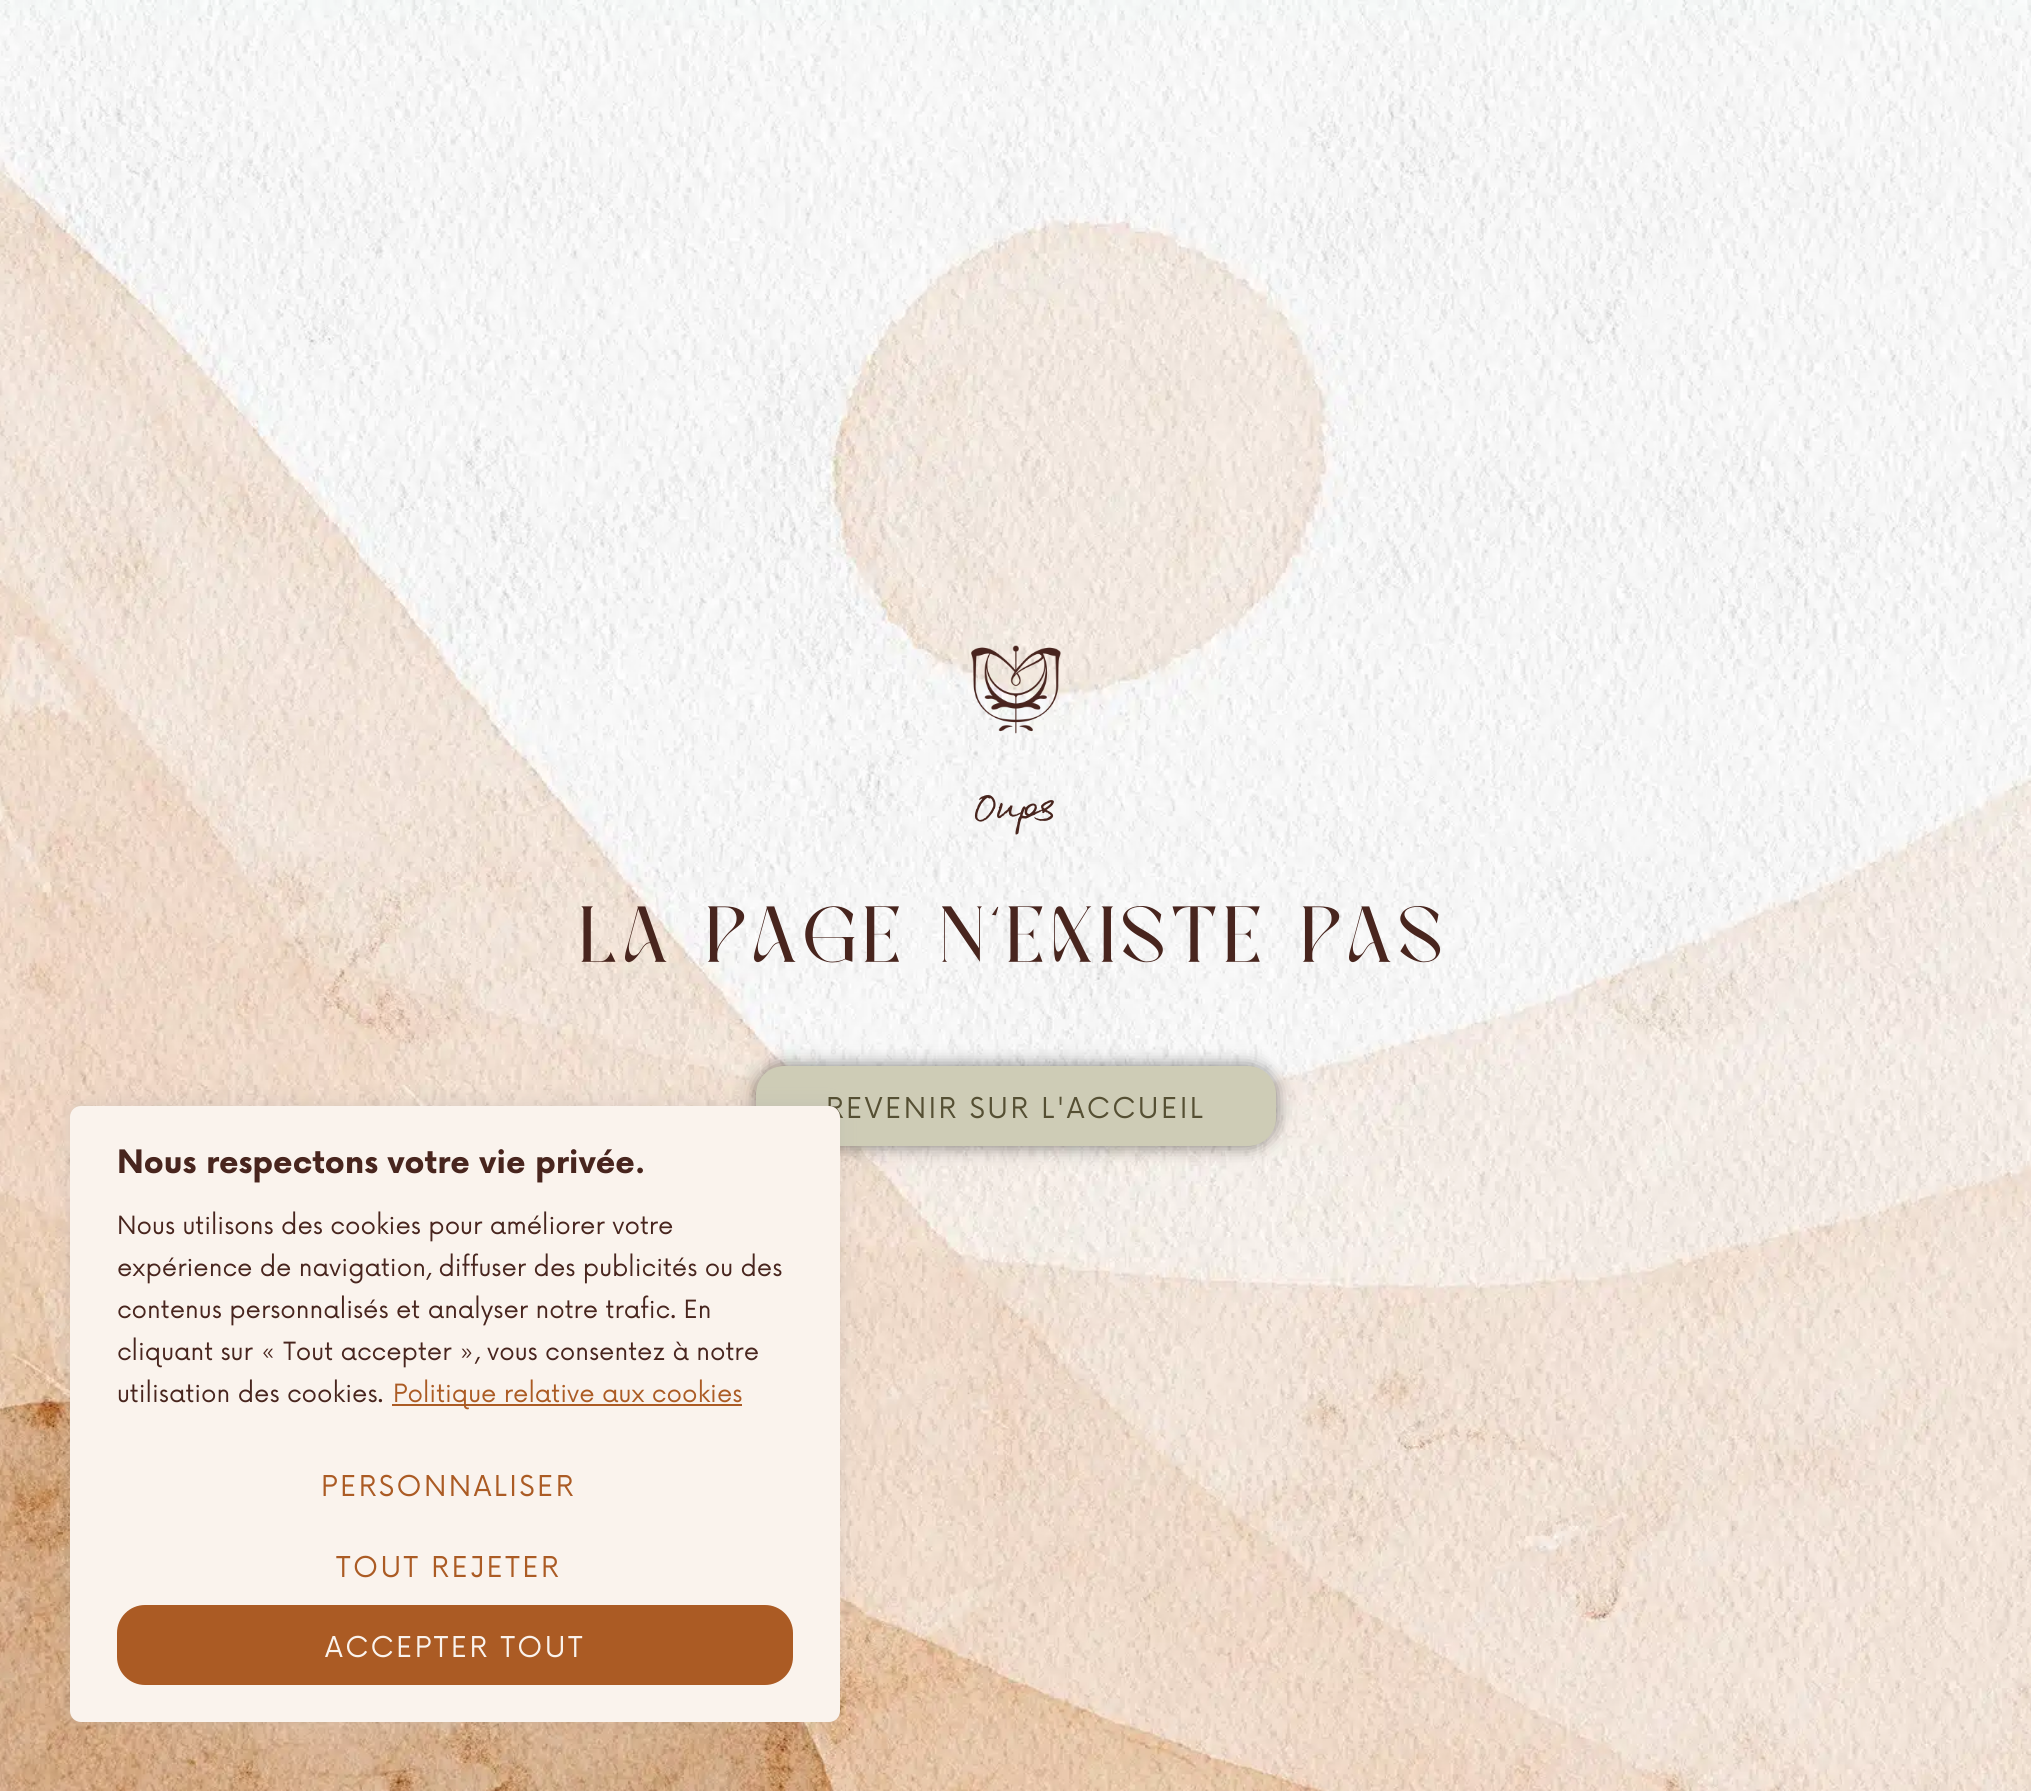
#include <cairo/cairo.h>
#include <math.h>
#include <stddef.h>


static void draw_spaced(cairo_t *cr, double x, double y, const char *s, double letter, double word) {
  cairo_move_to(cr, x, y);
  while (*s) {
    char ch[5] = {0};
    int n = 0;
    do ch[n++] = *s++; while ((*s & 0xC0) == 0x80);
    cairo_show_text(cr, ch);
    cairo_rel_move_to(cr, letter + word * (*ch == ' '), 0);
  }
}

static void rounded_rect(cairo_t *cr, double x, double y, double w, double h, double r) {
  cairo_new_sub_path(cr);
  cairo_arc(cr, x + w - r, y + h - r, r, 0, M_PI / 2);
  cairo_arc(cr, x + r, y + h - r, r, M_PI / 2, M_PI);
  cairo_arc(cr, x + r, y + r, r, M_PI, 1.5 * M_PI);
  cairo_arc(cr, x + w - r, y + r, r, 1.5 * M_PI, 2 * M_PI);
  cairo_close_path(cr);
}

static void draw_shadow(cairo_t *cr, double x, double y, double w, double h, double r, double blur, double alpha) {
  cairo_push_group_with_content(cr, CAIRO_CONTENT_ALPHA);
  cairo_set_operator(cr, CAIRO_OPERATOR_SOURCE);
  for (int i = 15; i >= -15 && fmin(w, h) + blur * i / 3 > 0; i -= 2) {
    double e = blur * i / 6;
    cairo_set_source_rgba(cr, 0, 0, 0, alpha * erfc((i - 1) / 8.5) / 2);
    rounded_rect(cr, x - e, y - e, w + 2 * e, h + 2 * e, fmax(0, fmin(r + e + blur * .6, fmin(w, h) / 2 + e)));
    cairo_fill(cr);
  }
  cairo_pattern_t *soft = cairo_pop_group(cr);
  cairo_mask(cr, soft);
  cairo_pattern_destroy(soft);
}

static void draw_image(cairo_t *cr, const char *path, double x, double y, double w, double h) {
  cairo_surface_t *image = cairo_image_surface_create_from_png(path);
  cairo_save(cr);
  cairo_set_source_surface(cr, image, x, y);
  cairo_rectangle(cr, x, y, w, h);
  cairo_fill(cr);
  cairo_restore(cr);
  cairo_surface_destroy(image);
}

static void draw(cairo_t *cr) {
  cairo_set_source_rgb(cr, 1, 1, 1);
  cairo_paint(cr);
  draw_image(cr, "images/1.png", 0, 0, 2031, 1791);
  draw_image(cr, "images/2.png", 971, 645, 90, 89);
  cairo_set_source_rgb(cr, 0, 0, 0);
  draw_shadow(cr, 756, 1066, 520, 80, 28, 9, 0.5);
  cairo_set_source_rgb(cr, 206 / 255.0, 204 / 255.0, 182 / 255.0);
  rounded_rect(cr, 756, 1066, 520, 80, 28);
  cairo_fill(cr);
  cairo_set_source_rgb(cr, 172 / 255.0, 171 / 255.0, 171 / 255.0);
  draw_shadow(cr, 70, 1104, 770, 616, 11, 9, 0.3);
  cairo_select_font_face(cr, "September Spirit", CAIRO_FONT_SLANT_NORMAL, CAIRO_FONT_WEIGHT_NORMAL);
  cairo_set_font_size(cr, 66);
  cairo_set_source_rgb(cr, 72 / 255.0, 37 / 255.0, 30 / 255.0);
  cairo_move_to(cr, 973, 828);
  cairo_show_text(cr, "Oups");
  cairo_select_font_face(cr, "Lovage", CAIRO_FONT_SLANT_NORMAL, CAIRO_FONT_WEIGHT_NORMAL);
  cairo_set_font_size(cr, 87.5);
  draw_spaced(cr, 581, 971, "LA PAGE N'EXISTE PAS", 7, 0);
  cairo_select_font_face(cr, "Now", CAIRO_FONT_SLANT_NORMAL, CAIRO_FONT_WEIGHT_NORMAL);
  cairo_set_font_size(cr, 28);
  cairo_set_source_rgb(cr, 85 / 255.0, 79 / 255.0, 51 / 255.0);
  draw_spaced(cr, 826, 1118, "REVENIR SUR L'ACCUEIL", 2.45, 0);
  cairo_set_source_rgb(cr, 250 / 255.0, 243 / 255.0, 237 / 255.0);
  rounded_rect(cr, 71, 1107, 768, 614, 10);
  cairo_fill_preserve(cr);
  cairo_stroke(cr);
  cairo_select_font_face(cr, "Now", CAIRO_FONT_SLANT_NORMAL, CAIRO_FONT_WEIGHT_BOLD);
  cairo_set_font_size(cr, 31.5);
  cairo_set_source_rgb(cr, 72 / 255.0, 37 / 255.0, 30 / 255.0);
  cairo_move_to(cr, 117, 1173);
  cairo_show_text(cr, "Nous respectons votre vie privée.");
  cairo_select_font_face(cr, "Now", CAIRO_FONT_SLANT_NORMAL, CAIRO_FONT_WEIGHT_NORMAL);
  cairo_set_font_size(cr, 24.5);
  cairo_move_to(cr, 117, 1234);
  cairo_show_text(cr, "Nous utilisons des cookies pour améliorer votre");
  cairo_move_to(cr, 117, 1276);
  cairo_show_text(cr, "expérience de navigation, diffuser des publicités ou des");
  cairo_move_to(cr, 117, 1318);
  cairo_show_text(cr, "contenus personnalisés et analyser notre trafic. En");
  cairo_move_to(cr, 117, 1360);
  cairo_show_text(cr, "cliquant sur « Tout accepter », vous consentez à notre");
  cairo_move_to(cr, 117, 1402);
  cairo_show_text(cr, "utilisation des cookies.");
  cairo_set_source_rgb(cr, 171 / 255.0, 91 / 255.0, 36 / 255.0);
  cairo_rectangle(cr, 392, 1404, 350, 2);
  cairo_fill(cr);
  cairo_move_to(cr, 393, 1402);
  cairo_show_text(cr, "Politique relative aux cookies");
  cairo_set_font_size(cr, 28);
  draw_spaced(cr, 321, 1496, "PERSONNALISER", 2.45, 0);
  draw_spaced(cr, 336, 1577, "TOUT REJETER", 2.45, 0);
  rounded_rect(cr, 117, 1605, 676, 80, 28);
  cairo_fill(cr);
  cairo_set_source_rgb(cr, 250 / 255.0, 243 / 255.0, 237 / 255.0);
  draw_spaced(cr, 325, 1657, "ACCEPTER TOUT", 2.45, 0);
}

int main(void) {
  cairo_surface_t *surface = cairo_image_surface_create(CAIRO_FORMAT_RGB24, 2031, 1791);
  cairo_t *cr = cairo_create(surface);
  cairo_font_options_t *options = cairo_font_options_create();
  cairo_font_options_set_hint_metrics(options, CAIRO_HINT_METRICS_OFF);
  cairo_font_options_set_hint_style(options, CAIRO_HINT_STYLE_NONE);
  cairo_set_font_options(cr, options);
  cairo_set_miter_limit(cr, 4);
  draw(cr);
  cairo_surface_write_to_png(surface, "out.png");
  cairo_font_options_destroy(options);
  cairo_destroy(cr);
  cairo_surface_destroy(surface);
  return 0;
}
